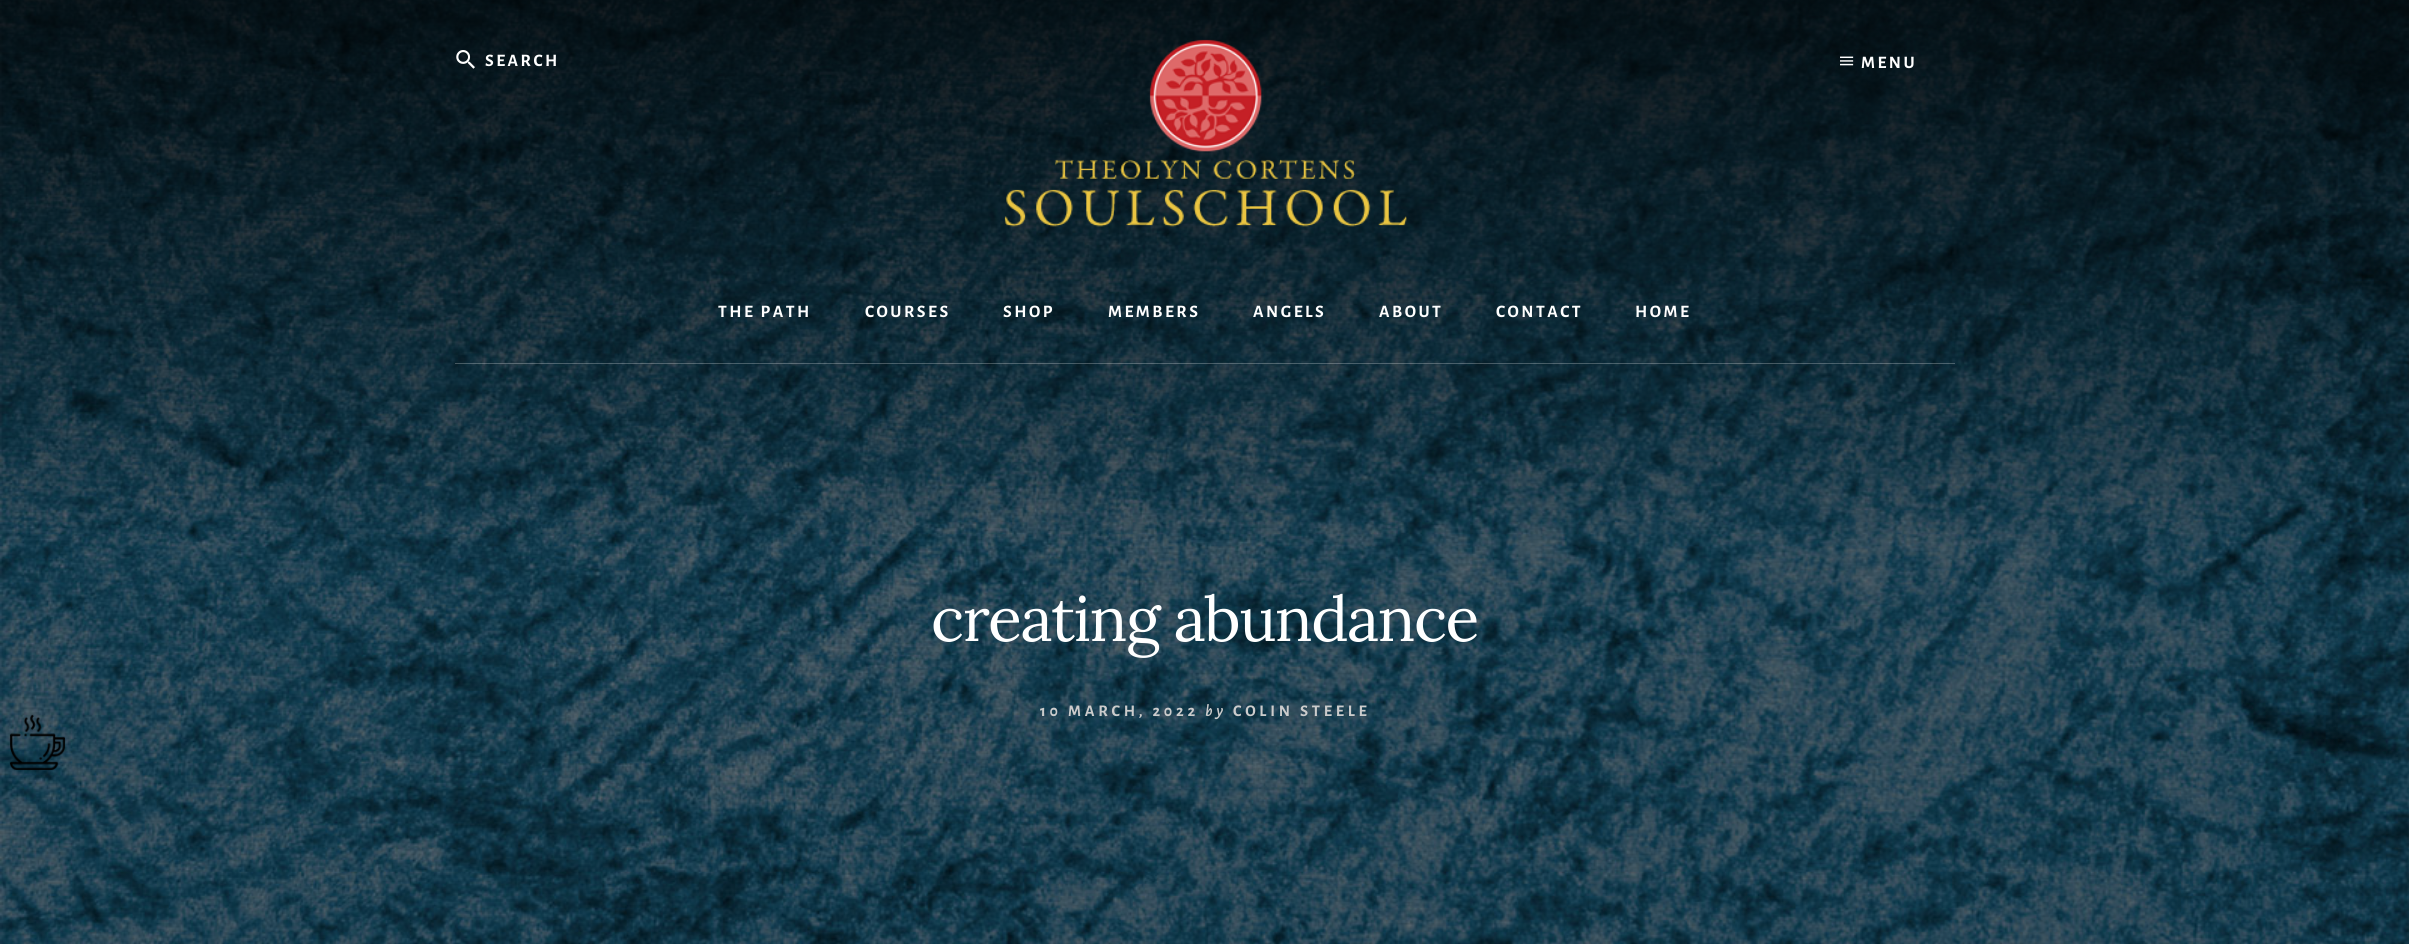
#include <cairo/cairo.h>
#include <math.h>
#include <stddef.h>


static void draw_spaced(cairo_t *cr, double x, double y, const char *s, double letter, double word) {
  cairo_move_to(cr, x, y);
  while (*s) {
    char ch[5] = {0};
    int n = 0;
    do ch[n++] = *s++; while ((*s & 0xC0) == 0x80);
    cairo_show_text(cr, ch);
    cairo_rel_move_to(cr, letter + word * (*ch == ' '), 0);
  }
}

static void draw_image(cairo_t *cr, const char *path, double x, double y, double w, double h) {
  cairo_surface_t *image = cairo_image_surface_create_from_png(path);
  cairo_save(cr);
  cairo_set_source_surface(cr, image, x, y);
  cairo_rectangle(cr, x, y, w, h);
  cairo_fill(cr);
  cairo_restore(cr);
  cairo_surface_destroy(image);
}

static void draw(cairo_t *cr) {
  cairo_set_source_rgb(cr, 1, 1, 1);
  cairo_paint(cr);
  draw_image(cr, "images/1.png", 0, 0, 2409, 944);
  draw_image(cr, "images/2.png", 456, 50, 19, 19);
  draw_image(cr, "images/3.png", 1004, 39, 403, 188);
  draw_image(cr, "images/4.png", 1840, 56, 14, 10);
  cairo_set_source_rgba(cr, 1, 1, 1, 0.25);
  cairo_rectangle(cr, 455, 363, 1500, 1);
  cairo_fill(cr);
  draw_image(cr, "images/5.png", 9, 714, 57, 57);
  cairo_select_font_face(cr, "Alegreya Sans", CAIRO_FONT_SLANT_NORMAL, CAIRO_FONT_WEIGHT_BOLD);
  cairo_set_font_size(cr, 17.5);
  cairo_set_source_rgb(cr, 1, 1, 1);
  draw_spaced(cr, 485, 66, "SEARCH", 2.5, 0);
  draw_spaced(cr, 1861, 68, "MENU", 2.5, 0);
  draw_spaced(cr, 718, 317, "THE PATH", 2.5, 0);
  draw_spaced(cr, 865, 317, "COURSES", 2.5, 0);
  draw_spaced(cr, 1003, 317, "SHOP", 2.5, 0);
  draw_spaced(cr, 1108, 317, "MEMBERS", 2.5, 0);
  draw_spaced(cr, 1253, 317, "ANGELS", 2.5, 0);
  draw_spaced(cr, 1379, 317, "ABOUT", 2.5, 0);
  draw_spaced(cr, 1496, 317, "CONTACT", 2.5, 0);
  draw_spaced(cr, 1635, 317, "HOME", 2.5, 0);
  cairo_select_font_face(cr, "Lora", CAIRO_FONT_SLANT_NORMAL, CAIRO_FONT_WEIGHT_NORMAL);
  cairo_set_font_size(cr, 62.5);
  draw_spaced(cr, 931, 641, "creating abundance", -1.6, 0);
  cairo_select_font_face(cr, "Alegreya Sans", CAIRO_FONT_SLANT_NORMAL, CAIRO_FONT_WEIGHT_BOLD);
  cairo_set_font_size(cr, 16.25);
  cairo_set_source_rgb(cr, 204 / 255.0, 204 / 255.0, 204 / 255.0);
  draw_spaced(cr, 1040, 716, "10 MARCH, 2022", 3.75, 0);
  cairo_select_font_face(cr, "Alegreya Sans", CAIRO_FONT_SLANT_ITALIC, CAIRO_FONT_WEIGHT_BOLD);
  draw_spaced(cr, 1205, 716, "by", 3.75, 0);
  cairo_select_font_face(cr, "Alegreya Sans", CAIRO_FONT_SLANT_NORMAL, CAIRO_FONT_WEIGHT_BOLD);
  draw_spaced(cr, 1233, 716, "COLIN STEELE", 3.75, 0);
}

int main(void) {
  cairo_surface_t *surface = cairo_image_surface_create(CAIRO_FORMAT_RGB24, 2409, 944);
  cairo_t *cr = cairo_create(surface);
  cairo_font_options_t *options = cairo_font_options_create();
  cairo_font_options_set_hint_metrics(options, CAIRO_HINT_METRICS_OFF);
  cairo_font_options_set_hint_style(options, CAIRO_HINT_STYLE_NONE);
  cairo_set_font_options(cr, options);
  cairo_set_miter_limit(cr, 4);
  draw(cr);
  cairo_surface_write_to_png(surface, "out.png");
  cairo_font_options_destroy(options);
  cairo_destroy(cr);
  cairo_surface_destroy(surface);
  return 0;
}
